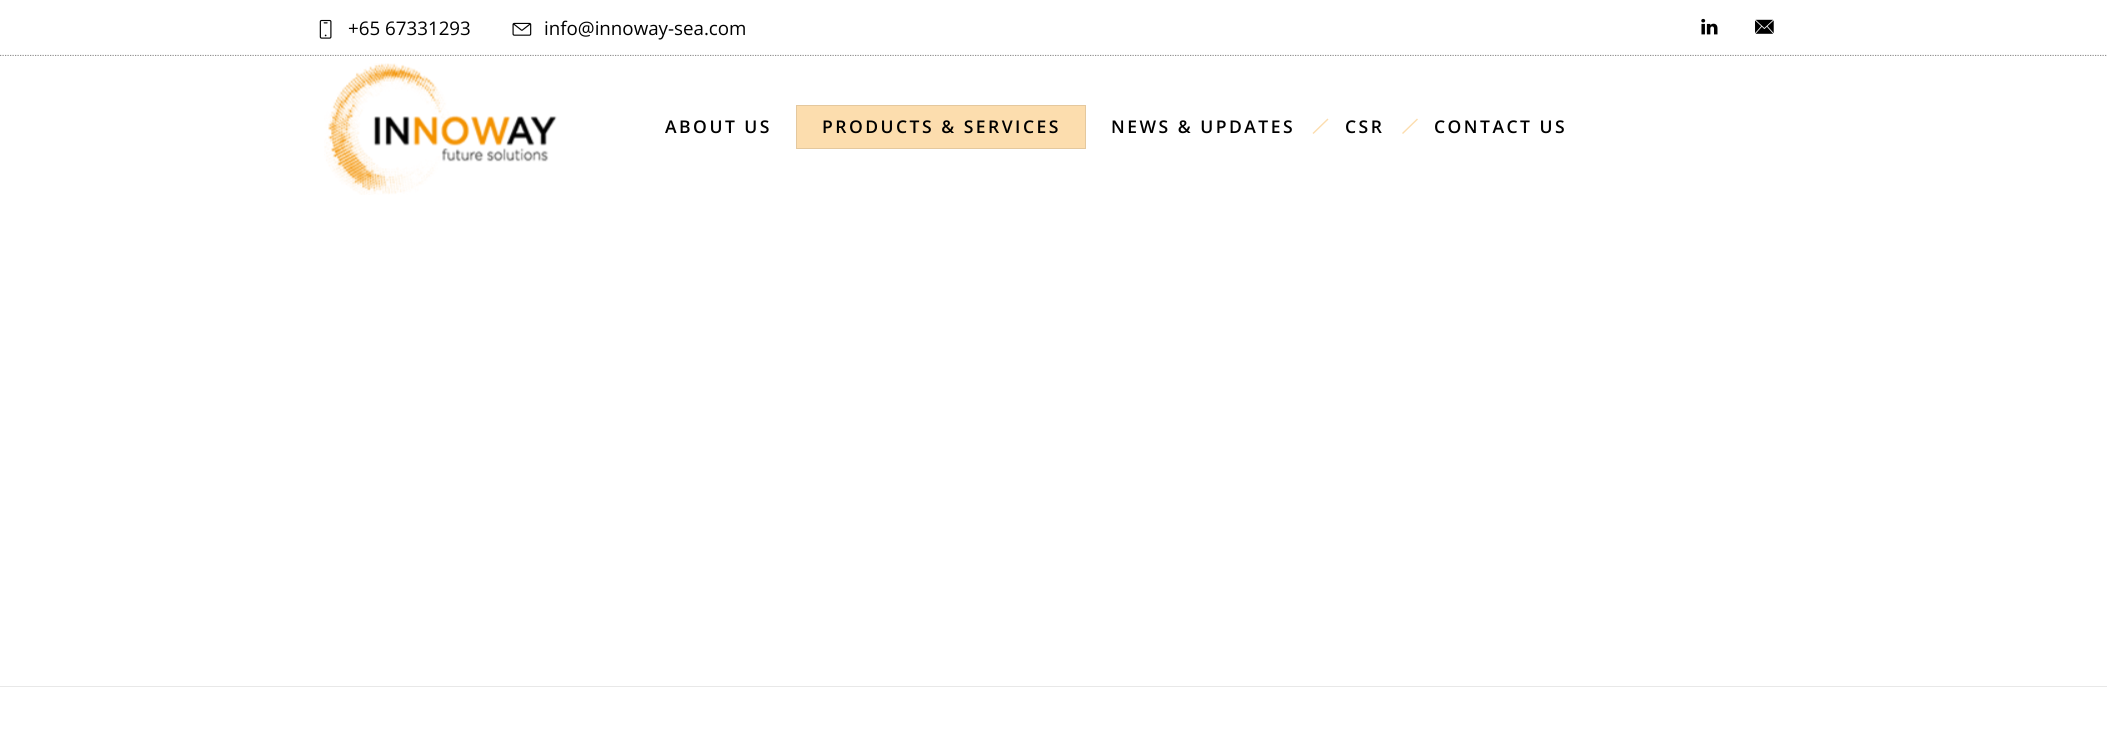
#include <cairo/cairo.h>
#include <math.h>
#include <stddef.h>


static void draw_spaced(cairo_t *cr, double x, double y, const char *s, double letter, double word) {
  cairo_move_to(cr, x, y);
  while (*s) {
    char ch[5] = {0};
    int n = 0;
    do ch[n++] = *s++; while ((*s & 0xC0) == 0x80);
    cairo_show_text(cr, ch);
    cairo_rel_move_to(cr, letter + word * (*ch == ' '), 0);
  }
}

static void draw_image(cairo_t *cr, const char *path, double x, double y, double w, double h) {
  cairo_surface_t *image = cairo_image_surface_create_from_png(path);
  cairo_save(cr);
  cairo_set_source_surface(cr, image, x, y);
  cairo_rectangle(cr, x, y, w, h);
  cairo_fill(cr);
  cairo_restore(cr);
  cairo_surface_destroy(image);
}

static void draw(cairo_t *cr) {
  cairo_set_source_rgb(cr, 1, 1, 1);
  cairo_paint(cr);
  cairo_new_path(cr);
  cairo_move_to(cr, 0, 55.5);
  cairo_line_to(cr, 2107.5, 55.5);
  cairo_set_source_rgb(cr, 145 / 255.0, 145 / 255.0, 145 / 255.0);
  cairo_set_line_width(cr, 1.2);
  cairo_set_dash(cr, (double[]){1.25, 1.25}, 2, 0);
  cairo_stroke(cr);
  draw_image(cr, "images/1.png", 319, 19, 13, 20);
  draw_image(cr, "images/2.png", 512, 22, 20, 14);
  draw_image(cr, "images/3.png", 1701, 18, 17, 17);
  draw_image(cr, "images/4.png", 1755, 19, 19, 15);
  cairo_set_source_rgba(cr, 1, 1, 1, 0.95);
  cairo_rectangle(cr, 0, 56, 2106, 1);
  cairo_fill(cr);
  draw_image(cr, "images/5.png", 324, 63, 233, 132);
  cairo_set_source_rgb(cr, 252 / 255.0, 221 / 255.0, 174 / 255.0);
  cairo_rectangle(cr, 796.5, 105.5, 289, 43);
  cairo_fill_preserve(cr);
  cairo_set_source_rgb(cr, 228 / 255.0, 200 / 255.0, 158 / 255.0);
  cairo_set_line_width(cr, 1);
  cairo_set_dash(cr, NULL, 0, 0);
  cairo_stroke(cr);
  cairo_set_source_rgb(cr, 252 / 255.0, 221 / 255.0, 174 / 255.0);
  cairo_new_path(cr);
  cairo_move_to(cr, 1327.5, 118.5);
  cairo_line_to(cr, 1328.5, 119.5);
  cairo_line_to(cr, 1313.5, 134);
  cairo_line_to(cr, 1312.5, 133);
  cairo_close_path(cr);
  cairo_fill(cr);
  cairo_new_path(cr);
  cairo_move_to(cr, 1417, 118.5);
  cairo_line_to(cr, 1418, 119.5);
  cairo_line_to(cr, 1403, 134);
  cairo_line_to(cr, 1402, 133);
  cairo_close_path(cr);
  cairo_fill(cr);
  cairo_set_source_rgb(cr, 232 / 255.0, 232 / 255.0, 232 / 255.0);
  cairo_rectangle(cr, 0, 686, 2107, 1);
  cairo_fill(cr);
  cairo_select_font_face(cr, "Open Sans", CAIRO_FONT_SLANT_NORMAL, CAIRO_FONT_WEIGHT_NORMAL);
  cairo_set_font_size(cr, 18.75);
  cairo_set_source_rgb(cr, 0, 0, 0);
  cairo_move_to(cr, 348, 35);
  cairo_show_text(cr, "+65 67331293");
  cairo_move_to(cr, 544, 35);
  cairo_show_text(cr, "info@innoway-sea.com");
  cairo_select_font_face(cr, "Open Sans SemiBold", CAIRO_FONT_SLANT_NORMAL, CAIRO_FONT_WEIGHT_NORMAL);
  cairo_set_font_size(cr, 17.5);
  draw_spaced(cr, 665, 133, "ABOUT US", 2.5, 0);
  draw_spaced(cr, 822, 133, "PRODUCTS & SERVICES", 2.5, 0);
  draw_spaced(cr, 1111, 133, "NEWS & UPDATES", 2.5, 0);
  draw_spaced(cr, 1345, 133, "CSR", 2.5, 0);
  draw_spaced(cr, 1434, 133, "CONTACT US", 2.5, 0);
}

int main(void) {
  cairo_surface_t *surface = cairo_image_surface_create(CAIRO_FORMAT_RGB24, 2107, 741);
  cairo_t *cr = cairo_create(surface);
  cairo_font_options_t *options = cairo_font_options_create();
  cairo_font_options_set_hint_metrics(options, CAIRO_HINT_METRICS_OFF);
  cairo_font_options_set_hint_style(options, CAIRO_HINT_STYLE_NONE);
  cairo_set_font_options(cr, options);
  cairo_set_miter_limit(cr, 4);
  draw(cr);
  cairo_surface_write_to_png(surface, "out.png");
  cairo_font_options_destroy(options);
  cairo_destroy(cr);
  cairo_surface_destroy(surface);
  return 0;
}
